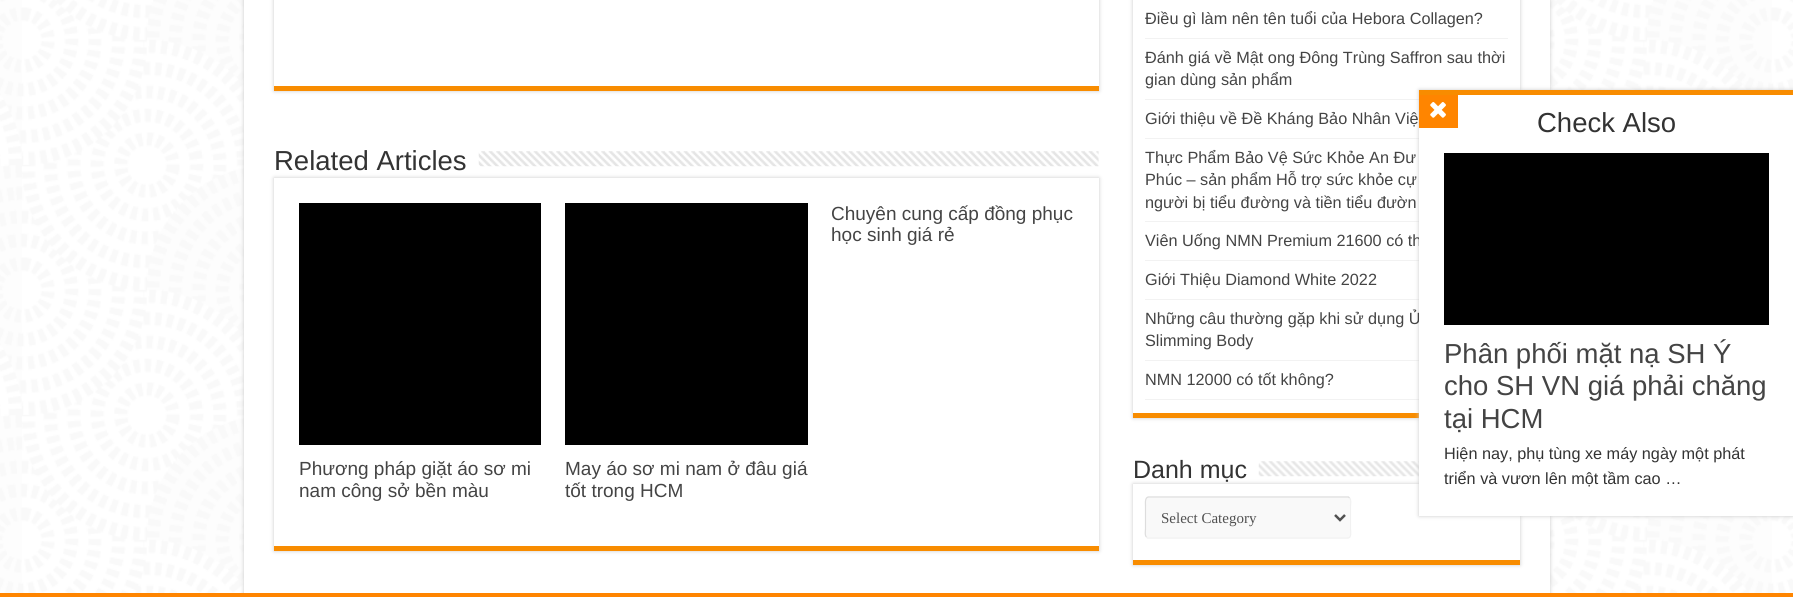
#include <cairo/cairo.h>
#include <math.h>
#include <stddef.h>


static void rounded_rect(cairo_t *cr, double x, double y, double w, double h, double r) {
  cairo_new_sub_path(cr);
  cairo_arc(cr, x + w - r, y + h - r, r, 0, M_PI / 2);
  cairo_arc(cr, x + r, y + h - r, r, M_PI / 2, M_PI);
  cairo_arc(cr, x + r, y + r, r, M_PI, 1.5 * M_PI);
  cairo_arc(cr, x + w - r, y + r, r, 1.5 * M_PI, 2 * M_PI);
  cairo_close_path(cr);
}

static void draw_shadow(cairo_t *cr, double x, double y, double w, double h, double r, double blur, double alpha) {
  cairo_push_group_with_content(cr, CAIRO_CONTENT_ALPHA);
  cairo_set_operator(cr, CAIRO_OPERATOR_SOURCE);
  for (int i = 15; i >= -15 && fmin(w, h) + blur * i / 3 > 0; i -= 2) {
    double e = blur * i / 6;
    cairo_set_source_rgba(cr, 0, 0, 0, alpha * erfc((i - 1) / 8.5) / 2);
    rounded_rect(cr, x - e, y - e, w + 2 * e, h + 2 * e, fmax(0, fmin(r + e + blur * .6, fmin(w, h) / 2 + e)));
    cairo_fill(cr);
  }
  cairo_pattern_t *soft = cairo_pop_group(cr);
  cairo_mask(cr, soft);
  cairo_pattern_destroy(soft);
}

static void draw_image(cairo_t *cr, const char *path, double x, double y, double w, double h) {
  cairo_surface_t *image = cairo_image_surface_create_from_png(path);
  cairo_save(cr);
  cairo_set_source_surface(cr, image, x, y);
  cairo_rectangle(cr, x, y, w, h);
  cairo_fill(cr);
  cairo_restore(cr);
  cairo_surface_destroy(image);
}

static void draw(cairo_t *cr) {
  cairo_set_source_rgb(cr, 1, 1, 1);
  cairo_paint(cr);
  draw_image(cr, "images/1.png", 0, 0, 1793, 593);
  cairo_set_source_rgb(cr, 202 / 255.0, 202 / 255.0, 202 / 255.0);
  draw_shadow(cr, 244, -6, 1306, 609, 0, 2, 1);
  cairo_set_source_rgb(cr, 1, 1, 1);
  cairo_rectangle(cr, 244, 0, 1306, 593);
  cairo_fill(cr);
  cairo_set_source_rgb(cr, 202 / 255.0, 202 / 255.0, 202 / 255.0);
  draw_shadow(cr, 1133, -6, 387, 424, 0, 2, 1);
  cairo_set_source_rgb(cr, 1, 1, 1);
  cairo_rectangle(cr, 1133, 0, 387, 413);
  cairo_fill(cr);
  cairo_set_source_rgb(cr, 248 / 255.0, 140 / 255.0, 0);
  cairo_rectangle(cr, 1133, 413, 286, 5);
  cairo_fill(cr);
  cairo_set_source_rgb(cr, 242 / 255.0, 242 / 255.0, 242 / 255.0);
  cairo_rectangle(cr, 1145, 38, 363, 1);
  cairo_fill(cr);
  cairo_rectangle(cr, 1145, 99, 274, 1);
  cairo_fill(cr);
  cairo_rectangle(cr, 1145, 138, 274, 1);
  cairo_fill(cr);
  cairo_rectangle(cr, 1145, 221, 274, 1);
  cairo_fill(cr);
  cairo_rectangle(cr, 1145, 260, 274, 1);
  cairo_fill(cr);
  cairo_rectangle(cr, 1145, 299, 274, 1);
  cairo_fill(cr);
  cairo_rectangle(cr, 1145, 360, 274, 1);
  cairo_fill(cr);
  cairo_rectangle(cr, 1145, 399, 274, 1);
  cairo_fill(cr);
  draw_image(cr, "images/2.png", 1258, 461, 161, 16);
  cairo_save(cr);
  cairo_set_fill_rule(cr, CAIRO_FILL_RULE_EVEN_ODD);
  cairo_new_path(cr);
  cairo_move_to(cr, 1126, 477);
  cairo_line_to(cr, 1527, 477);
  cairo_line_to(cr, 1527, 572);
  cairo_line_to(cr, 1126, 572);
  cairo_close_path(cr);
  cairo_move_to(cr, 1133, 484);
  cairo_line_to(cr, 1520, 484);
  cairo_line_to(cr, 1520, 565);
  cairo_line_to(cr, 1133, 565);
  cairo_close_path(cr);
  cairo_clip(cr);
  cairo_set_source_rgb(cr, 202 / 255.0, 202 / 255.0, 202 / 255.0);
  draw_shadow(cr, 1133, 484, 387, 81, 0, 2, 1);
  cairo_restore(cr);
  cairo_set_source_rgb(cr, 248 / 255.0, 140 / 255.0, 0);
  cairo_rectangle(cr, 1133, 560, 387, 5);
  cairo_fill(cr);
  cairo_set_source_rgb(cr, 249 / 255.0, 249 / 255.0, 249 / 255.0);
  rounded_rect(cr, 1145, 496, 206, 43, 4);
  cairo_fill(cr);
  cairo_new_path(cr);
  cairo_move_to(cr, 1349.5, 498);
  cairo_curve_to(cr, 1351.5, 499.5, 1350.5, 504.5, 1350.5, 506);
  cairo_line_to(cr, 1350.5, 529);
  cairo_curve_to(cr, 1350.5, 531.5, 1352, 538, 1347.5, 538);
  cairo_line_to(cr, 1147.5, 538);
  cairo_line_to(cr, 1146.5, 537);
  cairo_set_source_rgb(cr, 241 / 255.0, 241 / 255.0, 241 / 255.0);
  cairo_set_line_width(cr, 1.2);
  cairo_stroke(cr);
  cairo_new_path(cr);
  cairo_move_to(cr, 1146.5, 537);
  cairo_curve_to(cr, 1144.5, 535.5, 1145.5, 530.5, 1145.5, 529);
  cairo_line_to(cr, 1145.5, 506);
  cairo_curve_to(cr, 1145.5, 503.5, 1144.5, 497, 1149, 497);
  cairo_line_to(cr, 1348.5, 497);
  cairo_line_to(cr, 1349.5, 498);
  cairo_set_source_rgb(cr, 221 / 255.0, 221 / 255.0, 221 / 255.0);
  cairo_stroke(cr);
  cairo_new_path(cr);
  cairo_move_to(cr, 1335, 515);
  cairo_line_to(cr, 1340, 520);
  cairo_line_to(cr, 1345, 515);
  cairo_set_source_rgb(cr, 81 / 255.0, 81 / 255.0, 81 / 255.0);
  cairo_set_line_width(cr, 2.5);
  cairo_stroke(cr);
  cairo_set_source_rgb(cr, 202 / 255.0, 202 / 255.0, 202 / 255.0);
  draw_shadow(cr, 274, -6, 825, 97, 0, 2, 1);
  cairo_set_source_rgb(cr, 1, 1, 1);
  cairo_rectangle(cr, 274, 0, 825, 86);
  cairo_fill(cr);
  cairo_set_source_rgb(cr, 248 / 255.0, 140 / 255.0, 0);
  cairo_rectangle(cr, 274, 86, 825, 5);
  cairo_fill(cr);
  draw_image(cr, "images/3.png", 478, 151, 621, 16);
  cairo_set_source_rgb(cr, 202 / 255.0, 202 / 255.0, 202 / 255.0);
  draw_shadow(cr, 274, 178, 825, 373, 0, 2, 1);
  cairo_set_source_rgb(cr, 1, 1, 1);
  cairo_rectangle(cr, 274, 178, 825, 368);
  cairo_fill(cr);
  cairo_set_source_rgb(cr, 248 / 255.0, 140 / 255.0, 0);
  cairo_rectangle(cr, 274, 546, 825, 5);
  cairo_fill(cr);
  cairo_set_source_rgb(cr, 0, 0, 0);
  cairo_rectangle(cr, 299, 203, 242, 242);
  cairo_fill(cr);
  cairo_rectangle(cr, 565, 203, 243, 242);
  cairo_fill(cr);
  cairo_set_source_rgb(cr, 202 / 255.0, 202 / 255.0, 202 / 255.0);
  draw_shadow(cr, 1419, 90, 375, 426, 0, 2, 1);
  cairo_set_source_rgb(cr, 248 / 255.0, 140 / 255.0, 0);
  cairo_rectangle(cr, 1419, 90, 374, 5);
  cairo_fill(cr);
  cairo_set_source_rgb(cr, 1, 133 / 255.0, 0);
  cairo_rectangle(cr, 0, 593, 1793, 4);
  cairo_fill(cr);
  cairo_select_font_face(cr, "Liberation Sans", CAIRO_FONT_SLANT_NORMAL, CAIRO_FONT_WEIGHT_NORMAL);
  cairo_set_font_size(cr, 16.25);
  cairo_set_source_rgb(cr, 68 / 255.0, 68 / 255.0, 68 / 255.0);
  cairo_move_to(cr, 1145, 24);
  cairo_show_text(cr, "Điều gì làm nên tên tuổi của Hebora Collagen?");
  cairo_move_to(cr, 1145, 63);
  cairo_show_text(cr, "Đánh giá về Mật ong Đông Trùng Saffron sau thời");
  cairo_move_to(cr, 1145, 85);
  cairo_show_text(cr, "gian dùng sản phẩm");
  cairo_move_to(cr, 1145, 124);
  cairo_show_text(cr, "Giới thiệu về Đề Kháng Bảo Nhân Việ");
  cairo_move_to(cr, 1145, 163);
  cairo_show_text(cr, "Thực Phẩm Bảo Vệ Sức Khỏe An Đư");
  cairo_move_to(cr, 1145, 185);
  cairo_show_text(cr, "Phúc – sản phẩm Hỗ trợ sức khỏe cự");
  cairo_move_to(cr, 1145, 208);
  cairo_show_text(cr, "người bị tiểu đường và tiền tiểu đườn");
  cairo_move_to(cr, 1145, 246);
  cairo_show_text(cr, "Viên Uống NMN Premium 21600 có th");
  cairo_move_to(cr, 1145, 285);
  cairo_show_text(cr, "Giới Thiệu Diamond White 2022");
  cairo_move_to(cr, 1145, 324);
  cairo_show_text(cr, "Những câu thường gặp khi sử dụng Ủ");
  cairo_move_to(cr, 1145, 346);
  cairo_show_text(cr, "Slimming Body");
  cairo_move_to(cr, 1145, 385);
  cairo_show_text(cr, "NMN 12000 có tốt không?");
  cairo_set_font_size(cr, 25);
  cairo_set_source_rgb(cr, 51 / 255.0, 51 / 255.0, 51 / 255.0);
  cairo_move_to(cr, 1133, 478);
  cairo_show_text(cr, "Danh mục");
  cairo_select_font_face(cr, "Liberation Serif", CAIRO_FONT_SLANT_NORMAL, CAIRO_FONT_WEIGHT_NORMAL);
  cairo_set_font_size(cr, 15);
  cairo_set_source_rgb(cr, 81 / 255.0, 81 / 255.0, 81 / 255.0);
  cairo_move_to(cr, 1161, 523);
  cairo_show_text(cr, "Select Category");
  cairo_select_font_face(cr, "Liberation Sans", CAIRO_FONT_SLANT_NORMAL, CAIRO_FONT_WEIGHT_NORMAL);
  cairo_set_font_size(cr, 27.5);
  cairo_set_source_rgb(cr, 51 / 255.0, 51 / 255.0, 51 / 255.0);
  cairo_move_to(cr, 274, 170);
  cairo_show_text(cr, "Related Articles");
  cairo_set_font_size(cr, 19);
  cairo_set_source_rgb(cr, 68 / 255.0, 68 / 255.0, 68 / 255.0);
  cairo_move_to(cr, 831, 220);
  cairo_show_text(cr, "Chuyên cung cấp đồng phục");
  cairo_move_to(cr, 831, 241);
  cairo_show_text(cr, "học sinh giá rẻ");
  cairo_move_to(cr, 299, 475);
  cairo_show_text(cr, "Phương pháp giặt áo sơ mi");
  cairo_move_to(cr, 299, 497);
  cairo_show_text(cr, "nam công sở bền màu");
  cairo_move_to(cr, 565, 475);
  cairo_show_text(cr, "May áo sơ mi nam ở đâu giá");
  cairo_move_to(cr, 565, 497);
  cairo_show_text(cr, "tốt trong HCM");
  cairo_set_source_rgb(cr, 1, 1, 1);
  cairo_rectangle(cr, 1419, 95, 374, 421);
  cairo_fill(cr);
  cairo_set_source_rgb(cr, 1, 133 / 255.0, 0);
  cairo_rectangle(cr, 1419, 95, 39, 33);
  cairo_fill(cr);
  draw_image(cr, "images/4.png", 1430, 102, 16, 16);
  cairo_set_font_size(cr, 27.5);
  cairo_set_source_rgb(cr, 51 / 255.0, 51 / 255.0, 51 / 255.0);
  cairo_move_to(cr, 1537, 132);
  cairo_show_text(cr, "Check Also");
  cairo_set_source_rgb(cr, 0, 0, 0);
  cairo_rectangle(cr, 1444, 153, 325, 172);
  cairo_fill(cr);
  cairo_set_source_rgb(cr, 68 / 255.0, 68 / 255.0, 68 / 255.0);
  cairo_move_to(cr, 1444, 363);
  cairo_show_text(cr, "Phân phối mặt nạ SH Ý");
  cairo_move_to(cr, 1444, 395);
  cairo_show_text(cr, "cho SH VN giá phải chăng");
  cairo_move_to(cr, 1444, 428);
  cairo_show_text(cr, "tại HCM");
  cairo_set_font_size(cr, 16.25);
  cairo_set_source_rgb(cr, 51 / 255.0, 51 / 255.0, 51 / 255.0);
  cairo_move_to(cr, 1444, 459);
  cairo_show_text(cr, "Hiện nay, phụ tùng xe máy ngày một phát");
  cairo_move_to(cr, 1444, 484);
  cairo_show_text(cr, "triển và vươn lên một tầm cao …");
}

int main(void) {
  cairo_surface_t *surface = cairo_image_surface_create(CAIRO_FORMAT_RGB24, 1793, 597);
  cairo_t *cr = cairo_create(surface);
  cairo_font_options_t *options = cairo_font_options_create();
  cairo_font_options_set_hint_metrics(options, CAIRO_HINT_METRICS_OFF);
  cairo_font_options_set_hint_style(options, CAIRO_HINT_STYLE_NONE);
  cairo_set_font_options(cr, options);
  cairo_set_miter_limit(cr, 4);
  draw(cr);
  cairo_surface_write_to_png(surface, "out.png");
  cairo_font_options_destroy(options);
  cairo_destroy(cr);
  cairo_surface_destroy(surface);
  return 0;
}
